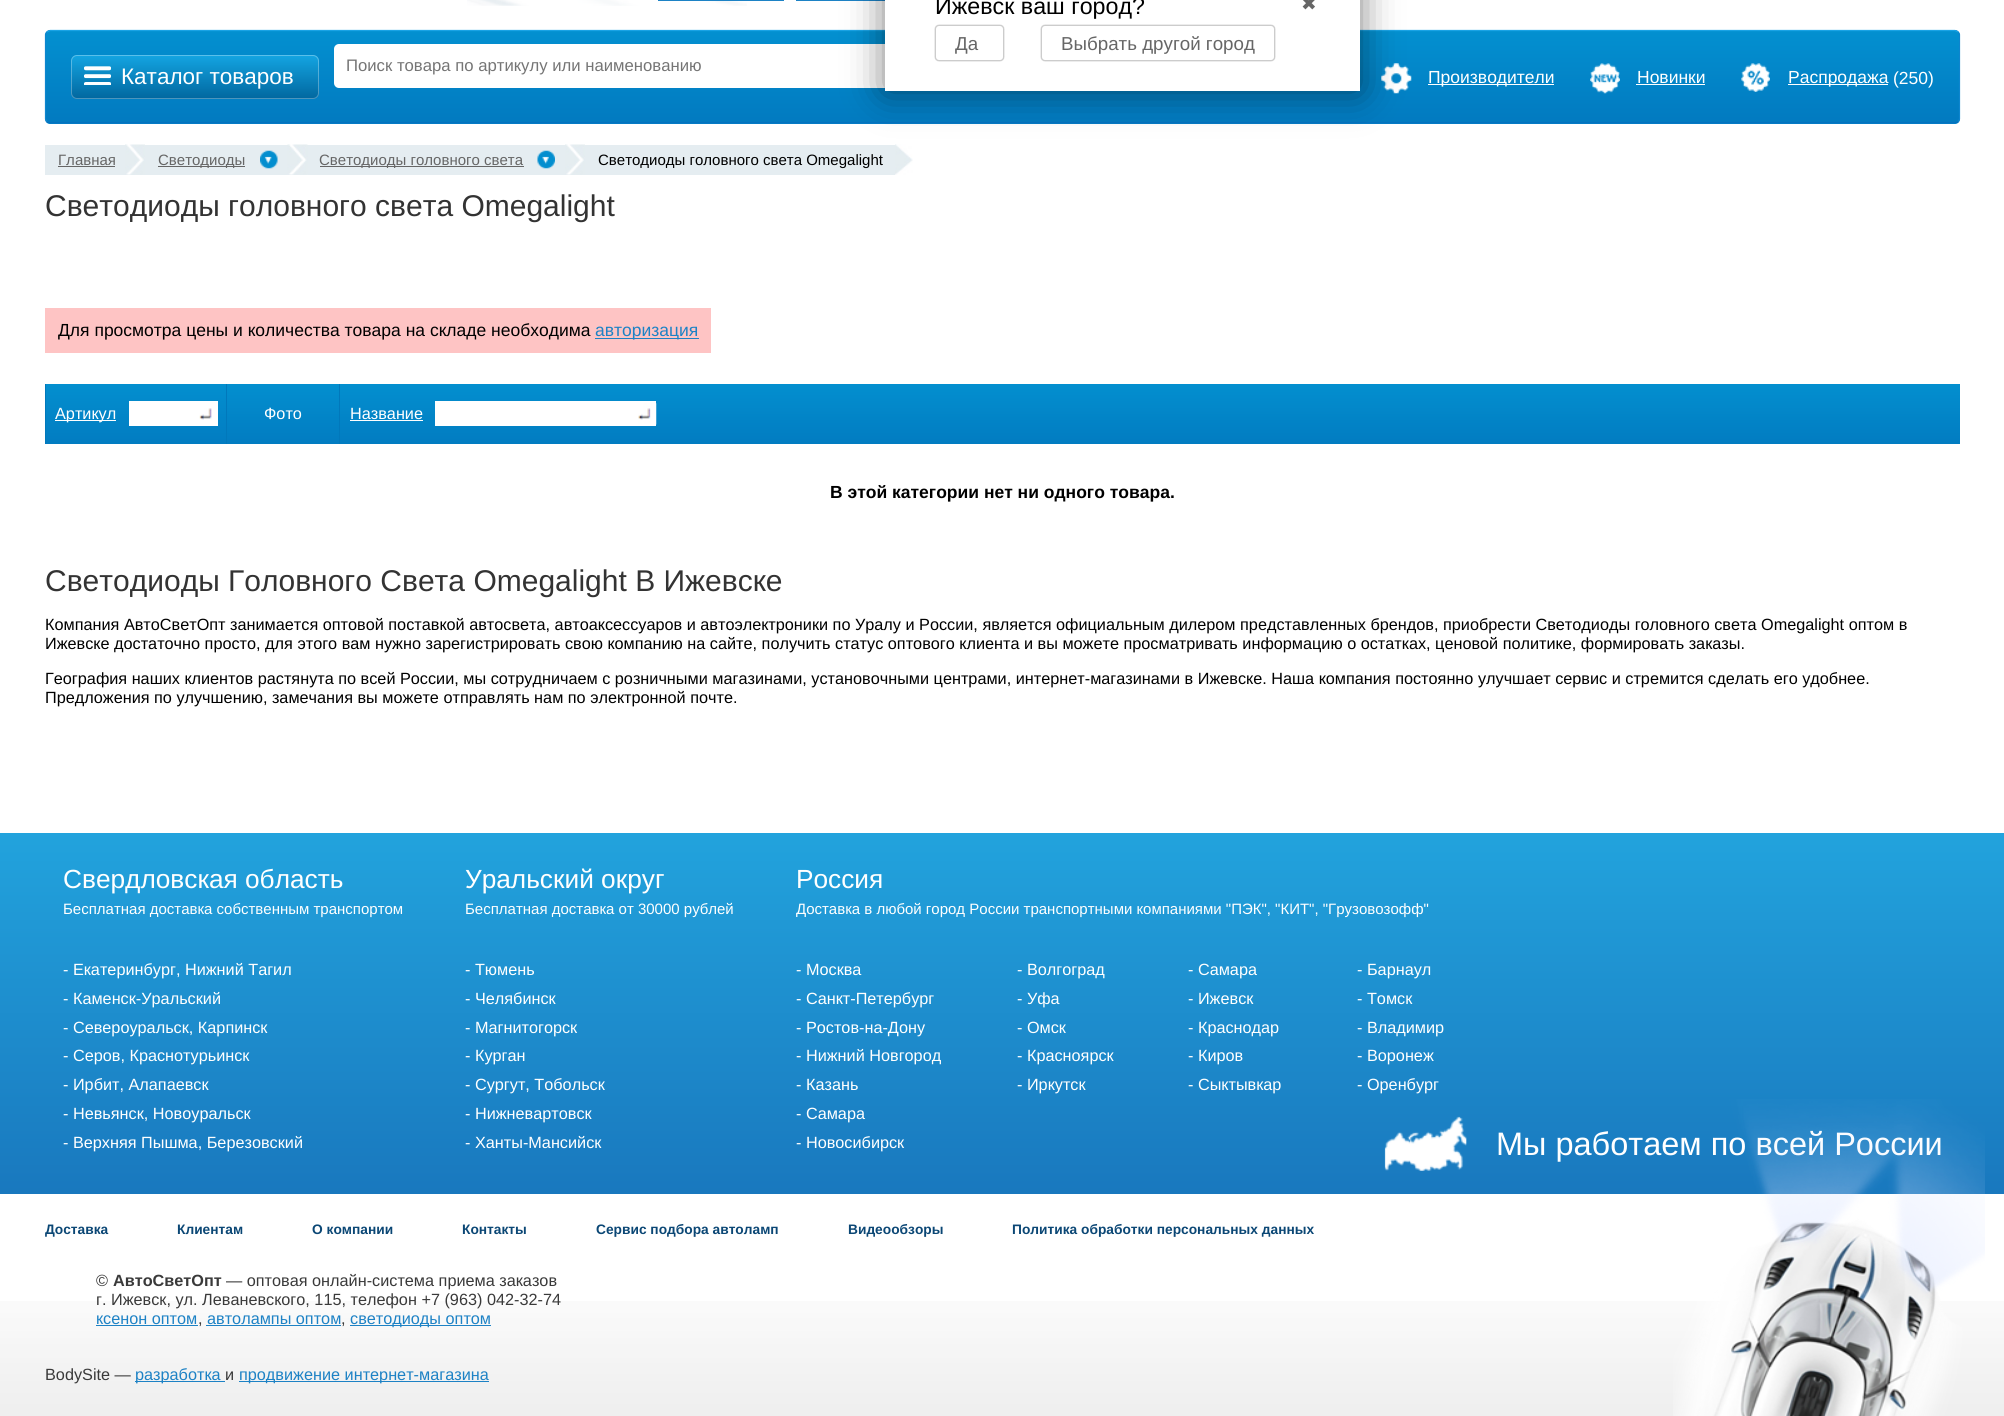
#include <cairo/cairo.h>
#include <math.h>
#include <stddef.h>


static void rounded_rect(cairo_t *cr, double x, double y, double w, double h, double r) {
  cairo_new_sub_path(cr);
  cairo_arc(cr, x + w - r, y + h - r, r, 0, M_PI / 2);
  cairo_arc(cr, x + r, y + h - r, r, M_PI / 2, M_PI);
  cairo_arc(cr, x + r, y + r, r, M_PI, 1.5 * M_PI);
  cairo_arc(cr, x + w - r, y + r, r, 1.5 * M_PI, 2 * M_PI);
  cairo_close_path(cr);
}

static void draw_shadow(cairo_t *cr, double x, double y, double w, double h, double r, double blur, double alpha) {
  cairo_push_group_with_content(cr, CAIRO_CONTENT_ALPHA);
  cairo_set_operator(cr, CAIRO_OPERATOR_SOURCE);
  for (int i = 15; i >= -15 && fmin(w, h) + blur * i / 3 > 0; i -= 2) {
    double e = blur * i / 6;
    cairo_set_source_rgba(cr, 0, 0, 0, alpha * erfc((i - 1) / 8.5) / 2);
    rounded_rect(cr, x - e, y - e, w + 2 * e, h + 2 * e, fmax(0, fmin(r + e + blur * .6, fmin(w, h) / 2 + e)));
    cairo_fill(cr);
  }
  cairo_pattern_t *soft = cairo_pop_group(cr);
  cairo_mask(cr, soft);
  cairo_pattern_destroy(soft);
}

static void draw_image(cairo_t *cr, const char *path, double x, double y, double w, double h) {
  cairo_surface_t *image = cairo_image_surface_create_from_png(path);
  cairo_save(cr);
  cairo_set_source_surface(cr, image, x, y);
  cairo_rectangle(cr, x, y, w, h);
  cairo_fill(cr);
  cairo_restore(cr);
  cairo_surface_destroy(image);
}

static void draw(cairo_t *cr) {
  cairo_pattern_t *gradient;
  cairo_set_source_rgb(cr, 1, 1, 1);
  cairo_paint(cr);
  draw_image(cr, "images/1.png", 467, 0, 280, 6);
  cairo_set_source_rgb(cr, 29 / 255.0, 130 / 255.0, 197 / 255.0);
  cairo_rectangle(cr, 658, 0, 126, 1);
  cairo_fill(cr);
  cairo_rectangle(cr, 796, 0, 97, 1);
  cairo_fill(cr);
  cairo_save(cr);
  rounded_rect(cr, 45, 30, 1915, 94, 5);
  cairo_clip(cr);
  gradient = cairo_pattern_create_linear(1003, -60, 1003, 31);
  cairo_pattern_add_color_stop_rgba(gradient, 0, 3 / 255.0, 144 / 255.0, 208 / 255.0, 1);
  cairo_pattern_add_color_stop_rgba(gradient, 1, 2 / 255.0, 122 / 255.0, 192 / 255.0, 1);
  cairo_set_source(cr, gradient);
  cairo_pattern_destroy(gradient);
  cairo_rectangle(cr, 45, 30, 1915, 1);
  cairo_fill(cr);
  gradient = cairo_pattern_create_linear(1003, 31, 1003, 123);
  cairo_pattern_add_color_stop_rgba(gradient, 0, 3 / 255.0, 144 / 255.0, 208 / 255.0, 1);
  cairo_pattern_add_color_stop_rgba(gradient, 1, 2 / 255.0, 122 / 255.0, 192 / 255.0, 1);
  cairo_set_source(cr, gradient);
  cairo_pattern_destroy(gradient);
  cairo_rectangle(cr, 45, 31, 1915, 92);
  cairo_fill(cr);
  gradient = cairo_pattern_create_linear(1003, 122, 1003, 214);
  cairo_pattern_add_color_stop_rgba(gradient, 0, 3 / 255.0, 144 / 255.0, 208 / 255.0, 1);
  cairo_pattern_add_color_stop_rgba(gradient, 1, 2 / 255.0, 122 / 255.0, 192 / 255.0, 1);
  cairo_set_source(cr, gradient);
  cairo_pattern_destroy(gradient);
  cairo_rectangle(cr, 45, 123, 1915, 1);
  cairo_fill(cr);
  cairo_restore(cr);
  cairo_new_path(cr);
  cairo_move_to(cr, 47, 32);
  cairo_line_to(cr, 50, 30.5);
  cairo_line_to(cr, 1955, 30.5);
  cairo_line_to(cr, 1958, 32);
  cairo_set_source_rgb(cr, 26 / 255.0, 163 / 255.0, 229 / 255.0);
  cairo_set_line_width(cr, 1.2);
  cairo_stroke(cr);
  cairo_new_path(cr);
  cairo_move_to(cr, 1958, 32);
  cairo_line_to(cr, 1959.5, 34.5);
  cairo_line_to(cr, 1959.5, 119);
  cairo_line_to(cr, 1958, 122);
  cairo_set_source_rgb(cr, 14 / 255.0, 133 / 255.0, 206 / 255.0);
  cairo_stroke(cr);
  cairo_new_path(cr);
  cairo_move_to(cr, 1958, 122);
  cairo_line_to(cr, 1955, 123);
  cairo_line_to(cr, 50, 123);
  cairo_line_to(cr, 47, 122);
  cairo_set_source_rgb(cr, 6 / 255.0, 109 / 255.0, 189 / 255.0);
  cairo_stroke(cr);
  cairo_set_source_rgb(cr, 1, 1, 1);
  rounded_rect(cr, 334, 44, 795, 44, 5);
  cairo_fill(cr);
  draw_image(cr, "images/3.png", 1381, 63, 31, 31);
  cairo_set_source_rgb(cr, 229 / 255.0, 237 / 255.0, 241 / 255.0);
  cairo_rectangle(cr, 45, 145, 850, 30);
  cairo_fill(cr);
  draw_image(cr, "images/11.png", 895, 144, 18, 31);
  cairo_set_source_rgb(cr, 0, 0, 0);
  draw_shadow(cr, 885, -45, 475, 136, 0, 19, 0.5);
  cairo_set_source_rgb(cr, 1, 1, 1);
  cairo_rectangle(cr, 885, 0, 475, 91);
  cairo_fill(cr);
  cairo_set_source_rgb(cr, 0, 0, 0);
  draw_shadow(cr, 935, 25, 69, 36, 4, 0.5, 0.3);
  cairo_set_source_rgb(cr, 1, 1, 1);
  rounded_rect(cr, 935.5, 25.5, 68, 35, 3.5);
  cairo_fill_preserve(cr);
  cairo_set_source_rgb(cr, 204 / 255.0, 204 / 255.0, 204 / 255.0);
  cairo_set_line_width(cr, 1);
  cairo_stroke(cr);
  cairo_set_source_rgb(cr, 0, 0, 0);
  draw_shadow(cr, 1041, 25, 234, 36, 4, 0.5, 0.3);
  cairo_set_source_rgb(cr, 1, 1, 1);
  rounded_rect(cr, 1041.5, 25.5, 233, 35, 3.5);
  cairo_fill_preserve(cr);
  cairo_set_source_rgb(cr, 204 / 255.0, 204 / 255.0, 204 / 255.0);
  cairo_stroke(cr);
  cairo_new_path(cr);
  cairo_move_to(cr, 47, 122);
  cairo_line_to(cr, 45.5, 119);
  cairo_line_to(cr, 45.5, 34.5);
  cairo_line_to(cr, 47, 32);
  cairo_set_source_rgb(cr, 14 / 255.0, 133 / 255.0, 206 / 255.0);
  cairo_set_line_width(cr, 1.2);
  cairo_stroke(cr);
  gradient = cairo_pattern_create_linear(195, 55, 195, 99);
  cairo_pattern_add_color_stop_rgba(gradient, 0, 20 / 255.0, 165 / 255.0, 226 / 255.0, 1);
  cairo_pattern_add_color_stop_rgba(gradient, 1, 1 / 255.0, 103 / 255.0, 159 / 255.0, 1);
  cairo_set_source(cr, gradient);
  cairo_pattern_destroy(gradient);
  rounded_rect(cr, 71, 55, 248, 44, 6);
  cairo_fill(cr);
  rounded_rect(cr, 71.5, 55.5, 247, 43, 5.5);
  cairo_set_source_rgba(cr, 1, 1, 1, 0.3);
  cairo_set_line_width(cr, 1);
  cairo_stroke(cr);
  draw_image(cr, "images/2.png", 84, 66, 27, 19);
  cairo_set_source_rgb(cr, 1, 1, 1);
  cairo_rectangle(cr, 1428, 84, 126, 1);
  cairo_fill(cr);
  draw_image(cr, "images/4.png", 1590, 63, 30, 31);
  cairo_rectangle(cr, 1636, 84, 69, 1);
  cairo_fill(cr);
  draw_image(cr, "images/5.png", 1741, 63, 29, 29);
  cairo_rectangle(cr, 1788, 84, 100, 1);
  cairo_fill(cr);
  draw_image(cr, "images/6.png", 125, 144, 20, 31);
  cairo_set_source_rgb(cr, 102 / 255.0, 102 / 255.0, 102 / 255.0);
  cairo_rectangle(cr, 58, 166, 57, 1);
  cairo_fill(cr);
  draw_image(cr, "images/7.png", 287, 144, 21, 31);
  cairo_rectangle(cr, 158, 166, 87, 1);
  cairo_fill(cr);
  draw_image(cr, "images/8.png", 260, 150, 18, 19);
  draw_image(cr, "images/9.png", 565, 144, 20, 31);
  cairo_rectangle(cr, 320, 166, 204, 1);
  cairo_fill(cr);
  draw_image(cr, "images/10.png", 537, 150, 18, 19);
  cairo_set_source_rgb(cr, 254 / 255.0, 196 / 255.0, 196 / 255.0);
  cairo_rectangle(cr, 45, 308, 666, 45);
  cairo_fill(cr);
  cairo_set_source_rgb(cr, 29 / 255.0, 130 / 255.0, 197 / 255.0);
  cairo_rectangle(cr, 595, 338, 104, 1);
  cairo_fill(cr);
  gradient = cairo_pattern_create_linear(1003, 384, 1003, 444);
  cairo_pattern_add_color_stop_rgba(gradient, 0, 3 / 255.0, 143 / 255.0, 207 / 255.0, 1);
  cairo_pattern_add_color_stop_rgba(gradient, 1, 2 / 255.0, 124 / 255.0, 193 / 255.0, 1);
  cairo_set_source(cr, gradient);
  cairo_pattern_destroy(gradient);
  cairo_rectangle(cr, 46, 384, 1914, 60);
  cairo_fill(cr);
  cairo_set_source_rgb(cr, 1 / 255.0, 120 / 255.0, 187 / 255.0);
  cairo_rectangle(cr, 45, 384, 1, 60);
  cairo_fill(cr);
  cairo_set_source_rgb(cr, 1, 1, 1);
  cairo_rectangle(cr, 55, 420, 61, 1);
  cairo_fill(cr);
  cairo_rectangle(cr, 129, 401, 89, 25);
  cairo_fill(cr);
  draw_image(cr, "images/12.png", 199, 408, 13, 12);
  cairo_set_source_rgb(cr, 1 / 255.0, 120 / 255.0, 187 / 255.0);
  cairo_rectangle(cr, 226, 384, 1, 60);
  cairo_fill(cr);
  cairo_rectangle(cr, 339, 384, 1, 60);
  cairo_fill(cr);
  cairo_set_source_rgb(cr, 1, 1, 1);
  cairo_rectangle(cr, 350, 420, 73, 1);
  cairo_fill(cr);
  cairo_rectangle(cr, 435, 401, 221, 25);
  cairo_fill(cr);
  draw_image(cr, "images/13.png", 638, 403, 19, 22);
  gradient = cairo_pattern_create_linear(1003, 832, 1003, 1194);
  cairo_pattern_add_color_stop_rgba(gradient, 0, 34 / 255.0, 163 / 255.0, 221 / 255.0, 1);
  cairo_pattern_add_color_stop_rgba(gradient, 1, 25 / 255.0, 120 / 255.0, 190 / 255.0, 1);
  cairo_set_source(cr, gradient);
  cairo_pattern_destroy(gradient);
  cairo_rectangle(cr, 0, 833, 2004, 361);
  cairo_fill(cr);
  draw_image(cr, "images/14.png", 1384, 1116, 83, 55);
  draw_image(cr, "images/15.png", 0, 1301, 2004, 115);
  cairo_set_source_rgb(cr, 29 / 255.0, 130 / 255.0, 197 / 255.0);
  cairo_rectangle(cr, 96, 1325, 102, 1);
  cairo_fill(cr);
  cairo_rectangle(cr, 206, 1325, 135, 1);
  cairo_fill(cr);
  cairo_rectangle(cr, 350, 1325, 141, 1);
  cairo_fill(cr);
  cairo_rectangle(cr, 135, 1381, 90, 1);
  cairo_fill(cr);
  cairo_rectangle(cr, 239, 1381, 250, 1);
  cairo_fill(cr);
  cairo_select_font_face(cr, "Liberation Sans", CAIRO_FONT_SLANT_NORMAL, CAIRO_FONT_WEIGHT_NORMAL);
  cairo_set_font_size(cr, 23.25);
  cairo_set_source_rgb(cr, 0, 0, 0);
  cairo_move_to(cr, 935, 14);
  cairo_show_text(cr, "Ижевск ваш город?");
  cairo_select_font_face(cr, "DejaVu Sans", CAIRO_FONT_SLANT_NORMAL, CAIRO_FONT_WEIGHT_NORMAL);
  cairo_set_font_size(cr, 18.75);
  cairo_set_source_rgb(cr, 102 / 255.0, 102 / 255.0, 102 / 255.0);
  cairo_move_to(cr, 1301, 10);
  cairo_show_text(cr, "✖");
  cairo_select_font_face(cr, "Liberation Sans", CAIRO_FONT_SLANT_NORMAL, CAIRO_FONT_WEIGHT_NORMAL);
  cairo_move_to(cr, 955, 50);
  cairo_show_text(cr, "Да");
  cairo_move_to(cr, 1061, 50);
  cairo_show_text(cr, "Выбрать другой город");
  cairo_set_font_size(cr, 22.5);
  cairo_set_source_rgb(cr, 1, 1, 1);
  cairo_move_to(cr, 121, 84);
  cairo_show_text(cr, "Каталог товаров");
  cairo_set_font_size(cr, 16.7);
  cairo_set_source_rgb(cr, 117 / 255.0, 117 / 255.0, 117 / 255.0);
  cairo_move_to(cr, 346, 71);
  cairo_show_text(cr, "Поиск товара по артикулу или наименованию");
  cairo_set_font_size(cr, 17.5);
  cairo_set_source_rgb(cr, 1, 1, 1);
  cairo_move_to(cr, 1428, 83);
  cairo_show_text(cr, "Производители");
  cairo_move_to(cr, 1637, 83);
  cairo_show_text(cr, "Новинки");
  cairo_move_to(cr, 1788, 83);
  cairo_show_text(cr, "Распродажа");
  cairo_move_to(cr, 1893, 84);
  cairo_show_text(cr, "(250)");
  cairo_set_font_size(cr, 15);
  cairo_set_source_rgb(cr, 102 / 255.0, 102 / 255.0, 102 / 255.0);
  cairo_move_to(cr, 58, 165);
  cairo_show_text(cr, "Главная");
  cairo_move_to(cr, 158, 165);
  cairo_show_text(cr, "Светодиоды");
  cairo_move_to(cr, 319, 165);
  cairo_show_text(cr, "Светодиоды головного света");
  cairo_set_source_rgb(cr, 0, 0, 0);
  cairo_move_to(cr, 598, 165);
  cairo_show_text(cr, "Светодиоды головного света Omegalight");
  cairo_set_font_size(cr, 30);
  cairo_set_source_rgb(cr, 51 / 255.0, 51 / 255.0, 51 / 255.0);
  cairo_move_to(cr, 45, 216);
  cairo_show_text(cr, "Светодиоды головного света Omegalight");
  cairo_set_font_size(cr, 17.5);
  cairo_set_source_rgb(cr, 0, 0, 0);
  cairo_move_to(cr, 58, 336);
  cairo_show_text(cr, "Для просмотра цены и количества товара на складе необходима");
  cairo_set_source_rgb(cr, 29 / 255.0, 130 / 255.0, 197 / 255.0);
  cairo_move_to(cr, 595, 336);
  cairo_show_text(cr, "авторизация");
  cairo_set_font_size(cr, 16.25);
  cairo_set_source_rgb(cr, 1, 1, 1);
  cairo_move_to(cr, 55, 419);
  cairo_show_text(cr, "Артикул");
  cairo_move_to(cr, 264, 419);
  cairo_show_text(cr, "Фото");
  cairo_move_to(cr, 350, 419);
  cairo_show_text(cr, "Название");
  cairo_select_font_face(cr, "Liberation Sans", CAIRO_FONT_SLANT_NORMAL, CAIRO_FONT_WEIGHT_BOLD);
  cairo_set_font_size(cr, 17.5);
  cairo_set_source_rgb(cr, 0, 0, 0);
  cairo_move_to(cr, 830, 498);
  cairo_show_text(cr, "В этой категории нет ни одного товара.");
  cairo_select_font_face(cr, "Liberation Sans", CAIRO_FONT_SLANT_NORMAL, CAIRO_FONT_WEIGHT_NORMAL);
  cairo_set_font_size(cr, 30);
  cairo_set_source_rgb(cr, 51 / 255.0, 51 / 255.0, 51 / 255.0);
  cairo_move_to(cr, 45, 591);
  cairo_show_text(cr, "Светодиоды Головного Света Omegalight В Ижевске");
  cairo_set_font_size(cr, 16.25);
  cairo_set_source_rgb(cr, 0, 0, 0);
  cairo_move_to(cr, 45, 630);
  cairo_show_text(cr, "Компания АвтоСветОпт занимается оптовой поставкой автосвета, автоаксессуаров и автоэлектроники по Уралу и Роcсии, является официальным дилером представленных брендов, приобрести Светодиоды головного света Omegalight оптом в");
  cairo_move_to(cr, 45, 649);
  cairo_show_text(cr, "Ижевске достаточно просто, для этого вам нужно зарегистрировать свою компанию на сайте, получить статус оптового клиента и вы можете просматривать информацию о остатках, ценовой политике, формировать заказы.");
  cairo_move_to(cr, 45, 684);
  cairo_show_text(cr, "География наших клиентов растянута по всей России, мы сотрудничаем с розничными магазинами, установочными центрами, интернет-магазинами в Ижевске. Наша компания постоянно улучшает сервис и стремится сделать его удобнее.");
  cairo_move_to(cr, 45, 703);
  cairo_show_text(cr, "Предложения по улучшению, замечания вы можете отправлять нам по электронной почте.");
  cairo_set_font_size(cr, 26.25);
  cairo_set_source_rgb(cr, 1, 1, 1);
  cairo_move_to(cr, 63, 888);
  cairo_show_text(cr, "Свердловская область");
  cairo_set_font_size(cr, 15);
  cairo_move_to(cr, 63, 914);
  cairo_show_text(cr, "Бесплатная доставка собственным транспортом");
  cairo_set_font_size(cr, 16.25);
  cairo_move_to(cr, 63, 975);
  cairo_show_text(cr, "- Екатеринбург, Нижний Тагил");
  cairo_move_to(cr, 63, 1004);
  cairo_show_text(cr, "- Каменск-Уральский");
  cairo_move_to(cr, 63, 1033);
  cairo_show_text(cr, "- Североуральск, Карпинск");
  cairo_move_to(cr, 63, 1061);
  cairo_show_text(cr, "- Серов, Краснотурьинск");
  cairo_move_to(cr, 63, 1090);
  cairo_show_text(cr, "- Ирбит, Алапаевск");
  cairo_move_to(cr, 63, 1119);
  cairo_show_text(cr, "- Невьянск, Новоуральск");
  cairo_move_to(cr, 63, 1148);
  cairo_show_text(cr, "- Верхняя Пышма, Березовский");
  cairo_set_font_size(cr, 26.25);
  cairo_move_to(cr, 465, 888);
  cairo_show_text(cr, "Уральский округ");
  cairo_set_font_size(cr, 15);
  cairo_move_to(cr, 465, 914);
  cairo_show_text(cr, "Бесплатная доставка от 30000 рублей");
  cairo_set_font_size(cr, 16.25);
  cairo_move_to(cr, 465, 975);
  cairo_show_text(cr, "- Тюмень");
  cairo_move_to(cr, 465, 1004);
  cairo_show_text(cr, "- Челябинск");
  cairo_move_to(cr, 465, 1033);
  cairo_show_text(cr, "- Магнитогорск");
  cairo_move_to(cr, 465, 1061);
  cairo_show_text(cr, "- Курган");
  cairo_move_to(cr, 465, 1090);
  cairo_show_text(cr, "- Сургут, Тобольск");
  cairo_move_to(cr, 465, 1119);
  cairo_show_text(cr, "- Нижневартовск");
  cairo_move_to(cr, 465, 1148);
  cairo_show_text(cr, "- Ханты-Мансийск");
  cairo_set_font_size(cr, 26.25);
  cairo_move_to(cr, 796, 888);
  cairo_show_text(cr, "Россия");
  cairo_set_font_size(cr, 15);
  cairo_move_to(cr, 796, 914);
  cairo_show_text(cr, "Доставка в любой город России транспортными компаниями \"ПЭК\", \"КИТ\", \"Грузовозофф\"");
  cairo_set_font_size(cr, 16.25);
  cairo_move_to(cr, 796, 975);
  cairo_show_text(cr, "- Москва");
  cairo_move_to(cr, 796, 1004);
  cairo_show_text(cr, "- Санкт-Петербург");
  cairo_move_to(cr, 796, 1033);
  cairo_show_text(cr, "- Ростов-на-Дону");
  cairo_move_to(cr, 796, 1061);
  cairo_show_text(cr, "- Нижний Новгород");
  cairo_move_to(cr, 796, 1090);
  cairo_show_text(cr, "- Казань");
  cairo_move_to(cr, 796, 1119);
  cairo_show_text(cr, "- Самара");
  cairo_move_to(cr, 796, 1148);
  cairo_show_text(cr, "- Новосибирск");
  cairo_move_to(cr, 1017, 975);
  cairo_show_text(cr, "- Волгоград");
  cairo_move_to(cr, 1017, 1004);
  cairo_show_text(cr, "- Уфа");
  cairo_move_to(cr, 1017, 1033);
  cairo_show_text(cr, "- Омск");
  cairo_move_to(cr, 1017, 1061);
  cairo_show_text(cr, "- Красноярск");
  cairo_move_to(cr, 1017, 1090);
  cairo_show_text(cr, "- Иркутск");
  cairo_move_to(cr, 1188, 975);
  cairo_show_text(cr, "- Самара");
  cairo_move_to(cr, 1188, 1004);
  cairo_show_text(cr, "- Ижевск");
  cairo_move_to(cr, 1188, 1033);
  cairo_show_text(cr, "- Краснодар");
  cairo_move_to(cr, 1188, 1061);
  cairo_show_text(cr, "- Киров");
  cairo_move_to(cr, 1188, 1090);
  cairo_show_text(cr, "- Сыктывкар");
  cairo_move_to(cr, 1357, 975);
  cairo_show_text(cr, "- Барнаул");
  cairo_move_to(cr, 1357, 1004);
  cairo_show_text(cr, "- Томск");
  cairo_move_to(cr, 1357, 1033);
  cairo_show_text(cr, "- Владимир");
  cairo_move_to(cr, 1357, 1061);
  cairo_show_text(cr, "- Воронеж");
  cairo_move_to(cr, 1357, 1090);
  cairo_show_text(cr, "- Оренбург");
  cairo_set_font_size(cr, 32.5);
  cairo_move_to(cr, 1496, 1155);
  cairo_show_text(cr, "Мы работаем по всей России");
  cairo_select_font_face(cr, "Liberation Sans", CAIRO_FONT_SLANT_NORMAL, CAIRO_FONT_WEIGHT_BOLD);
  cairo_set_font_size(cr, 13.75);
  cairo_set_source_rgb(cr, 11 / 255.0, 71 / 255.0, 117 / 255.0);
  cairo_move_to(cr, 45, 1234);
  cairo_show_text(cr, "Доставка");
  cairo_move_to(cr, 177, 1234);
  cairo_show_text(cr, "Клиентам");
  cairo_move_to(cr, 312, 1234);
  cairo_show_text(cr, "О компании");
  cairo_move_to(cr, 462, 1234);
  cairo_show_text(cr, "Контакты");
  cairo_move_to(cr, 596, 1234);
  cairo_show_text(cr, "Сервис подбора автоламп");
  cairo_move_to(cr, 848, 1234);
  cairo_show_text(cr, "Видеообзоры");
  cairo_move_to(cr, 1012, 1234);
  cairo_show_text(cr, "Политика обработки персональных данных");
  draw_image(cr, "images/16.png", 1673, 1099, 312, 317);
  cairo_select_font_face(cr, "Liberation Sans", CAIRO_FONT_SLANT_NORMAL, CAIRO_FONT_WEIGHT_NORMAL);
  cairo_set_font_size(cr, 16.25);
  cairo_set_source_rgb(cr, 58 / 255.0, 58 / 255.0, 58 / 255.0);
  cairo_move_to(cr, 96, 1286);
  cairo_show_text(cr, "©");
  cairo_select_font_face(cr, "Liberation Sans", CAIRO_FONT_SLANT_NORMAL, CAIRO_FONT_WEIGHT_BOLD);
  cairo_move_to(cr, 113, 1286);
  cairo_show_text(cr, "АвтоСветОпт");
  cairo_select_font_face(cr, "Liberation Sans", CAIRO_FONT_SLANT_NORMAL, CAIRO_FONT_WEIGHT_NORMAL);
  cairo_move_to(cr, 226, 1286);
  cairo_show_text(cr, "— оптовая онлайн-система приема заказов");
  cairo_move_to(cr, 96, 1305);
  cairo_show_text(cr, "г. Ижевск, ул. Леваневского, 115, телефон +7 (963) 042-32-74");
  cairo_set_source_rgb(cr, 29 / 255.0, 130 / 255.0, 197 / 255.0);
  cairo_move_to(cr, 96, 1324);
  cairo_show_text(cr, "ксенон оптом");
  cairo_set_source_rgb(cr, 58 / 255.0, 58 / 255.0, 58 / 255.0);
  cairo_move_to(cr, 198, 1324);
  cairo_show_text(cr, ",");
  cairo_set_source_rgb(cr, 29 / 255.0, 130 / 255.0, 197 / 255.0);
  cairo_move_to(cr, 207, 1324);
  cairo_show_text(cr, "автолампы оптом");
  cairo_set_source_rgb(cr, 58 / 255.0, 58 / 255.0, 58 / 255.0);
  cairo_move_to(cr, 341, 1324);
  cairo_show_text(cr, ",");
  cairo_set_source_rgb(cr, 29 / 255.0, 130 / 255.0, 197 / 255.0);
  cairo_move_to(cr, 350, 1324);
  cairo_show_text(cr, "светодиоды оптом");
  cairo_set_source_rgb(cr, 58 / 255.0, 58 / 255.0, 58 / 255.0);
  cairo_move_to(cr, 45, 1380);
  cairo_show_text(cr, "BodySite —");
  cairo_set_source_rgb(cr, 29 / 255.0, 130 / 255.0, 197 / 255.0);
  cairo_move_to(cr, 135, 1380);
  cairo_show_text(cr, "разработка");
  cairo_set_source_rgb(cr, 58 / 255.0, 58 / 255.0, 58 / 255.0);
  cairo_move_to(cr, 225, 1380);
  cairo_show_text(cr, "и");
  cairo_set_source_rgb(cr, 29 / 255.0, 130 / 255.0, 197 / 255.0);
  cairo_move_to(cr, 239, 1380);
  cairo_show_text(cr, "продвижение интернет-магазина");
}

int main(void) {
  cairo_surface_t *surface = cairo_image_surface_create(CAIRO_FORMAT_RGB24, 2004, 1416);
  cairo_t *cr = cairo_create(surface);
  cairo_font_options_t *options = cairo_font_options_create();
  cairo_font_options_set_hint_metrics(options, CAIRO_HINT_METRICS_OFF);
  cairo_font_options_set_hint_style(options, CAIRO_HINT_STYLE_NONE);
  cairo_set_font_options(cr, options);
  cairo_set_miter_limit(cr, 4);
  draw(cr);
  cairo_surface_write_to_png(surface, "out.png");
  cairo_font_options_destroy(options);
  cairo_destroy(cr);
  cairo_surface_destroy(surface);
  return 0;
}
